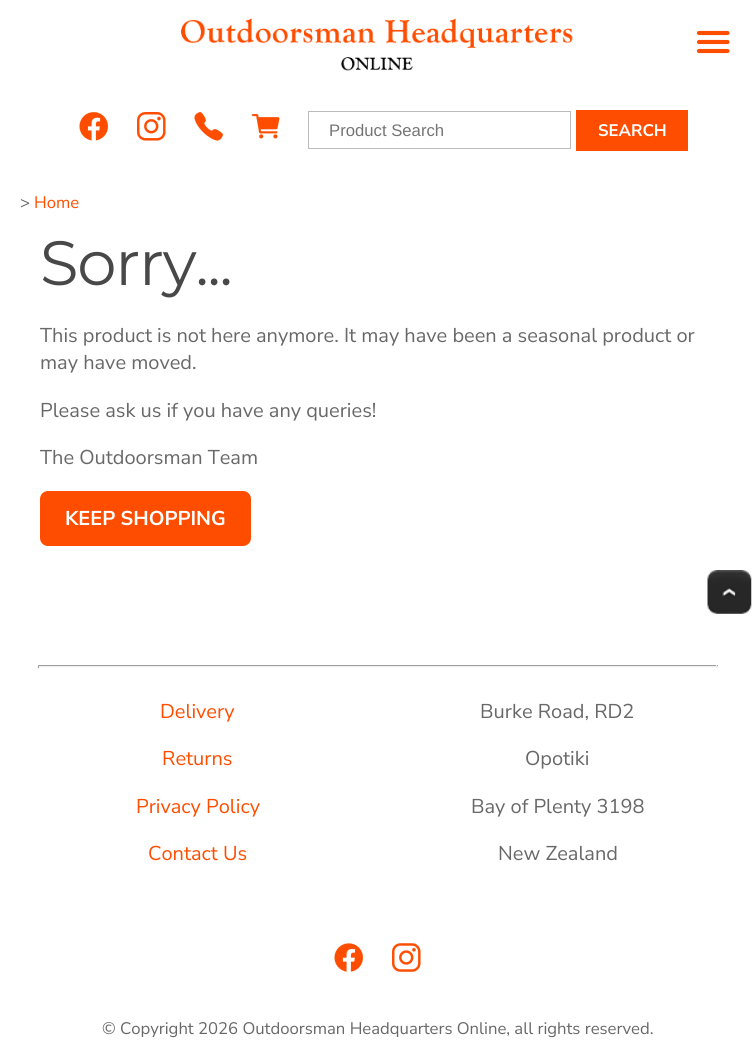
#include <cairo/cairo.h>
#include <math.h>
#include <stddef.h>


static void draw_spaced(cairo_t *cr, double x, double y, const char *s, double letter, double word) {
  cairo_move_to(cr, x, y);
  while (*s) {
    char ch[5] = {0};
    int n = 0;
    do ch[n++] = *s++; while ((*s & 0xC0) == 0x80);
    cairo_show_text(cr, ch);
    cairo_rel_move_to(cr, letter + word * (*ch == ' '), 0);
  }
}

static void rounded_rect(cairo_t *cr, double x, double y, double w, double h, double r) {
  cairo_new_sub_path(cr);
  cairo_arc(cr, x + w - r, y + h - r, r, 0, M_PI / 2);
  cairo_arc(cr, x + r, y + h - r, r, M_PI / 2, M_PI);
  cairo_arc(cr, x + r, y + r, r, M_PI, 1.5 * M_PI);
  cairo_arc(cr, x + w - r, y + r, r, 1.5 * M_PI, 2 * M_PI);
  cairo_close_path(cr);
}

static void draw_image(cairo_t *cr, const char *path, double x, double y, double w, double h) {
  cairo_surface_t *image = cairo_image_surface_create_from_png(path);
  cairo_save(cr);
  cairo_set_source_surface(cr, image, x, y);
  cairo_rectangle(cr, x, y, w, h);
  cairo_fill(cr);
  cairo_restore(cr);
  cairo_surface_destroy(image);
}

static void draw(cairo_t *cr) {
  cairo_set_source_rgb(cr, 1, 1, 1);
  cairo_paint(cr);
  draw_image(cr, "images/1.png", 181, 18, 392, 53);
  cairo_new_path(cr);
  cairo_move_to(cr, 699, 33);
  cairo_line_to(cr, 727.5, 33);
  cairo_move_to(cr, 699, 42);
  cairo_line_to(cr, 727.5, 42);
  cairo_move_to(cr, 699, 51);
  cairo_line_to(cr, 727.5, 51);
  cairo_set_source_rgb(cr, 1, 77 / 255.0, 0);
  cairo_set_line_width(cr, 4.1);
  cairo_set_line_cap(cr, CAIRO_LINE_CAP_ROUND);
  cairo_stroke(cr);
  draw_image(cr, "images/2.png", 79, 112, 29, 29);
  draw_image(cr, "images/3.png", 137, 112, 29, 29);
  draw_image(cr, "images/4.png", 194, 112, 29, 29);
  draw_image(cr, "images/5.png", 252, 114, 28, 25);
  cairo_rectangle(cr, 308.5, 111.5, 262, 37);
  cairo_set_source_rgb(cr, 188 / 255.0, 188 / 255.0, 188 / 255.0);
  cairo_set_line_width(cr, 1);
  cairo_set_line_cap(cr, CAIRO_LINE_CAP_BUTT);
  cairo_stroke(cr);
  cairo_set_source_rgb(cr, 1, 77 / 255.0, 0);
  cairo_rectangle(cr, 576, 110, 112, 41);
  cairo_fill(cr);
  rounded_rect(cr, 40, 491, 211, 55, 8);
  cairo_fill(cr);
  draw_image(cr, "images/6.png", 707, 570, 45, 44);
  cairo_set_source_rgb(cr, 159 / 255.0, 159 / 255.0, 159 / 255.0);
  cairo_rectangle(cr, 38, 665, 680, 1);
  cairo_fill(cr);
  cairo_set_source_rgb(cr, 238 / 255.0, 238 / 255.0, 238 / 255.0);
  cairo_rectangle(cr, 716, 665, 1, 3);
  cairo_fill(cr);
  cairo_rectangle(cr, 38, 666, 680, 1);
  cairo_fill(cr);
  cairo_set_source_rgb(cr, 159 / 255.0, 159 / 255.0, 159 / 255.0);
  cairo_rectangle(cr, 38, 665, 1, 3);
  cairo_fill(cr);
  draw_image(cr, "images/7.png", 334, 943, 29, 29);
  draw_image(cr, "images/8.png", 392, 943, 29, 29);
  cairo_select_font_face(cr, "Liberation Sans", CAIRO_FONT_SLANT_NORMAL, CAIRO_FONT_WEIGHT_NORMAL);
  cairo_set_font_size(cr, 16.7);
  cairo_set_source_rgb(cr, 117 / 255.0, 117 / 255.0, 117 / 255.0);
  cairo_move_to(cr, 329, 136);
  cairo_show_text(cr, "Product Search");
  cairo_select_font_face(cr, "Nunito Sans", CAIRO_FONT_SLANT_NORMAL, CAIRO_FONT_WEIGHT_BOLD);
  cairo_set_source_rgb(cr, 1, 1, 1);
  cairo_move_to(cr, 598, 136);
  cairo_show_text(cr, "SEARCH");
  cairo_select_font_face(cr, "Nunito Sans", CAIRO_FONT_SLANT_NORMAL, CAIRO_FONT_WEIGHT_NORMAL);
  cairo_set_source_rgb(cr, 104 / 255.0, 104 / 255.0, 104 / 255.0);
  cairo_move_to(cr, 20, 208);
  cairo_show_text(cr, ">");
  cairo_set_source_rgb(cr, 1, 77 / 255.0, 0);
  cairo_move_to(cr, 34, 208);
  cairo_show_text(cr, "Home");
  cairo_select_font_face(cr, "Montserrat", CAIRO_FONT_SLANT_NORMAL, CAIRO_FONT_WEIGHT_NORMAL);
  cairo_set_font_size(cr, 62.5);
  cairo_set_source_rgb(cr, 72 / 255.0, 72 / 255.0, 72 / 255.0);
  draw_spaced(cr, 40, 285, "Sorry...", -1.25, 0);
  cairo_select_font_face(cr, "Nunito Sans", CAIRO_FONT_SLANT_NORMAL, CAIRO_FONT_WEIGHT_NORMAL);
  cairo_set_font_size(cr, 20);
  cairo_set_source_rgb(cr, 104 / 255.0, 104 / 255.0, 104 / 255.0);
  cairo_move_to(cr, 40, 342);
  cairo_show_text(cr, "This product is not here anymore. It may have been a seasonal product or");
  cairo_move_to(cr, 40, 369);
  cairo_show_text(cr, "may have moved.");
  cairo_move_to(cr, 40, 417);
  cairo_show_text(cr, "Please ask us if you have any queries!");
  cairo_move_to(cr, 40, 464);
  cairo_show_text(cr, "The Outdoorsman Team");
  cairo_select_font_face(cr, "Nunito Sans", CAIRO_FONT_SLANT_NORMAL, CAIRO_FONT_WEIGHT_BOLD);
  cairo_set_source_rgb(cr, 1, 1, 1);
  cairo_move_to(cr, 65, 525);
  cairo_show_text(cr, "KEEP SHOPPING");
  cairo_select_font_face(cr, "Nunito Sans", CAIRO_FONT_SLANT_NORMAL, CAIRO_FONT_WEIGHT_NORMAL);
  cairo_set_source_rgb(cr, 1, 77 / 255.0, 0);
  cairo_move_to(cr, 160, 718);
  cairo_show_text(cr, "Delivery");
  cairo_move_to(cr, 162, 765);
  cairo_show_text(cr, "Returns");
  cairo_move_to(cr, 136, 813);
  cairo_show_text(cr, "Privacy Policy");
  cairo_move_to(cr, 148, 860);
  cairo_show_text(cr, "Contact Us");
  cairo_set_source_rgb(cr, 104 / 255.0, 104 / 255.0, 104 / 255.0);
  cairo_move_to(cr, 480, 718);
  cairo_show_text(cr, "Burke Road, RD2");
  cairo_move_to(cr, 525, 765);
  cairo_show_text(cr, "Opotiki");
  cairo_move_to(cr, 471, 813);
  cairo_show_text(cr, "Bay of Plenty 3198");
  cairo_move_to(cr, 498, 860);
  cairo_show_text(cr, "New Zealand");
  cairo_set_font_size(cr, 16.7);
  cairo_move_to(cr, 102, 1034);
  cairo_show_text(cr, "© Copyright 2026 Outdoorsman Headquarters Online, all rights reserved.");
}

int main(void) {
  cairo_surface_t *surface = cairo_image_surface_create(CAIRO_FORMAT_RGB24, 755, 1060);
  cairo_t *cr = cairo_create(surface);
  cairo_font_options_t *options = cairo_font_options_create();
  cairo_font_options_set_hint_metrics(options, CAIRO_HINT_METRICS_OFF);
  cairo_font_options_set_hint_style(options, CAIRO_HINT_STYLE_NONE);
  cairo_set_font_options(cr, options);
  cairo_set_miter_limit(cr, 4);
  draw(cr);
  cairo_surface_write_to_png(surface, "out.png");
  cairo_font_options_destroy(options);
  cairo_destroy(cr);
  cairo_surface_destroy(surface);
  return 0;
}
